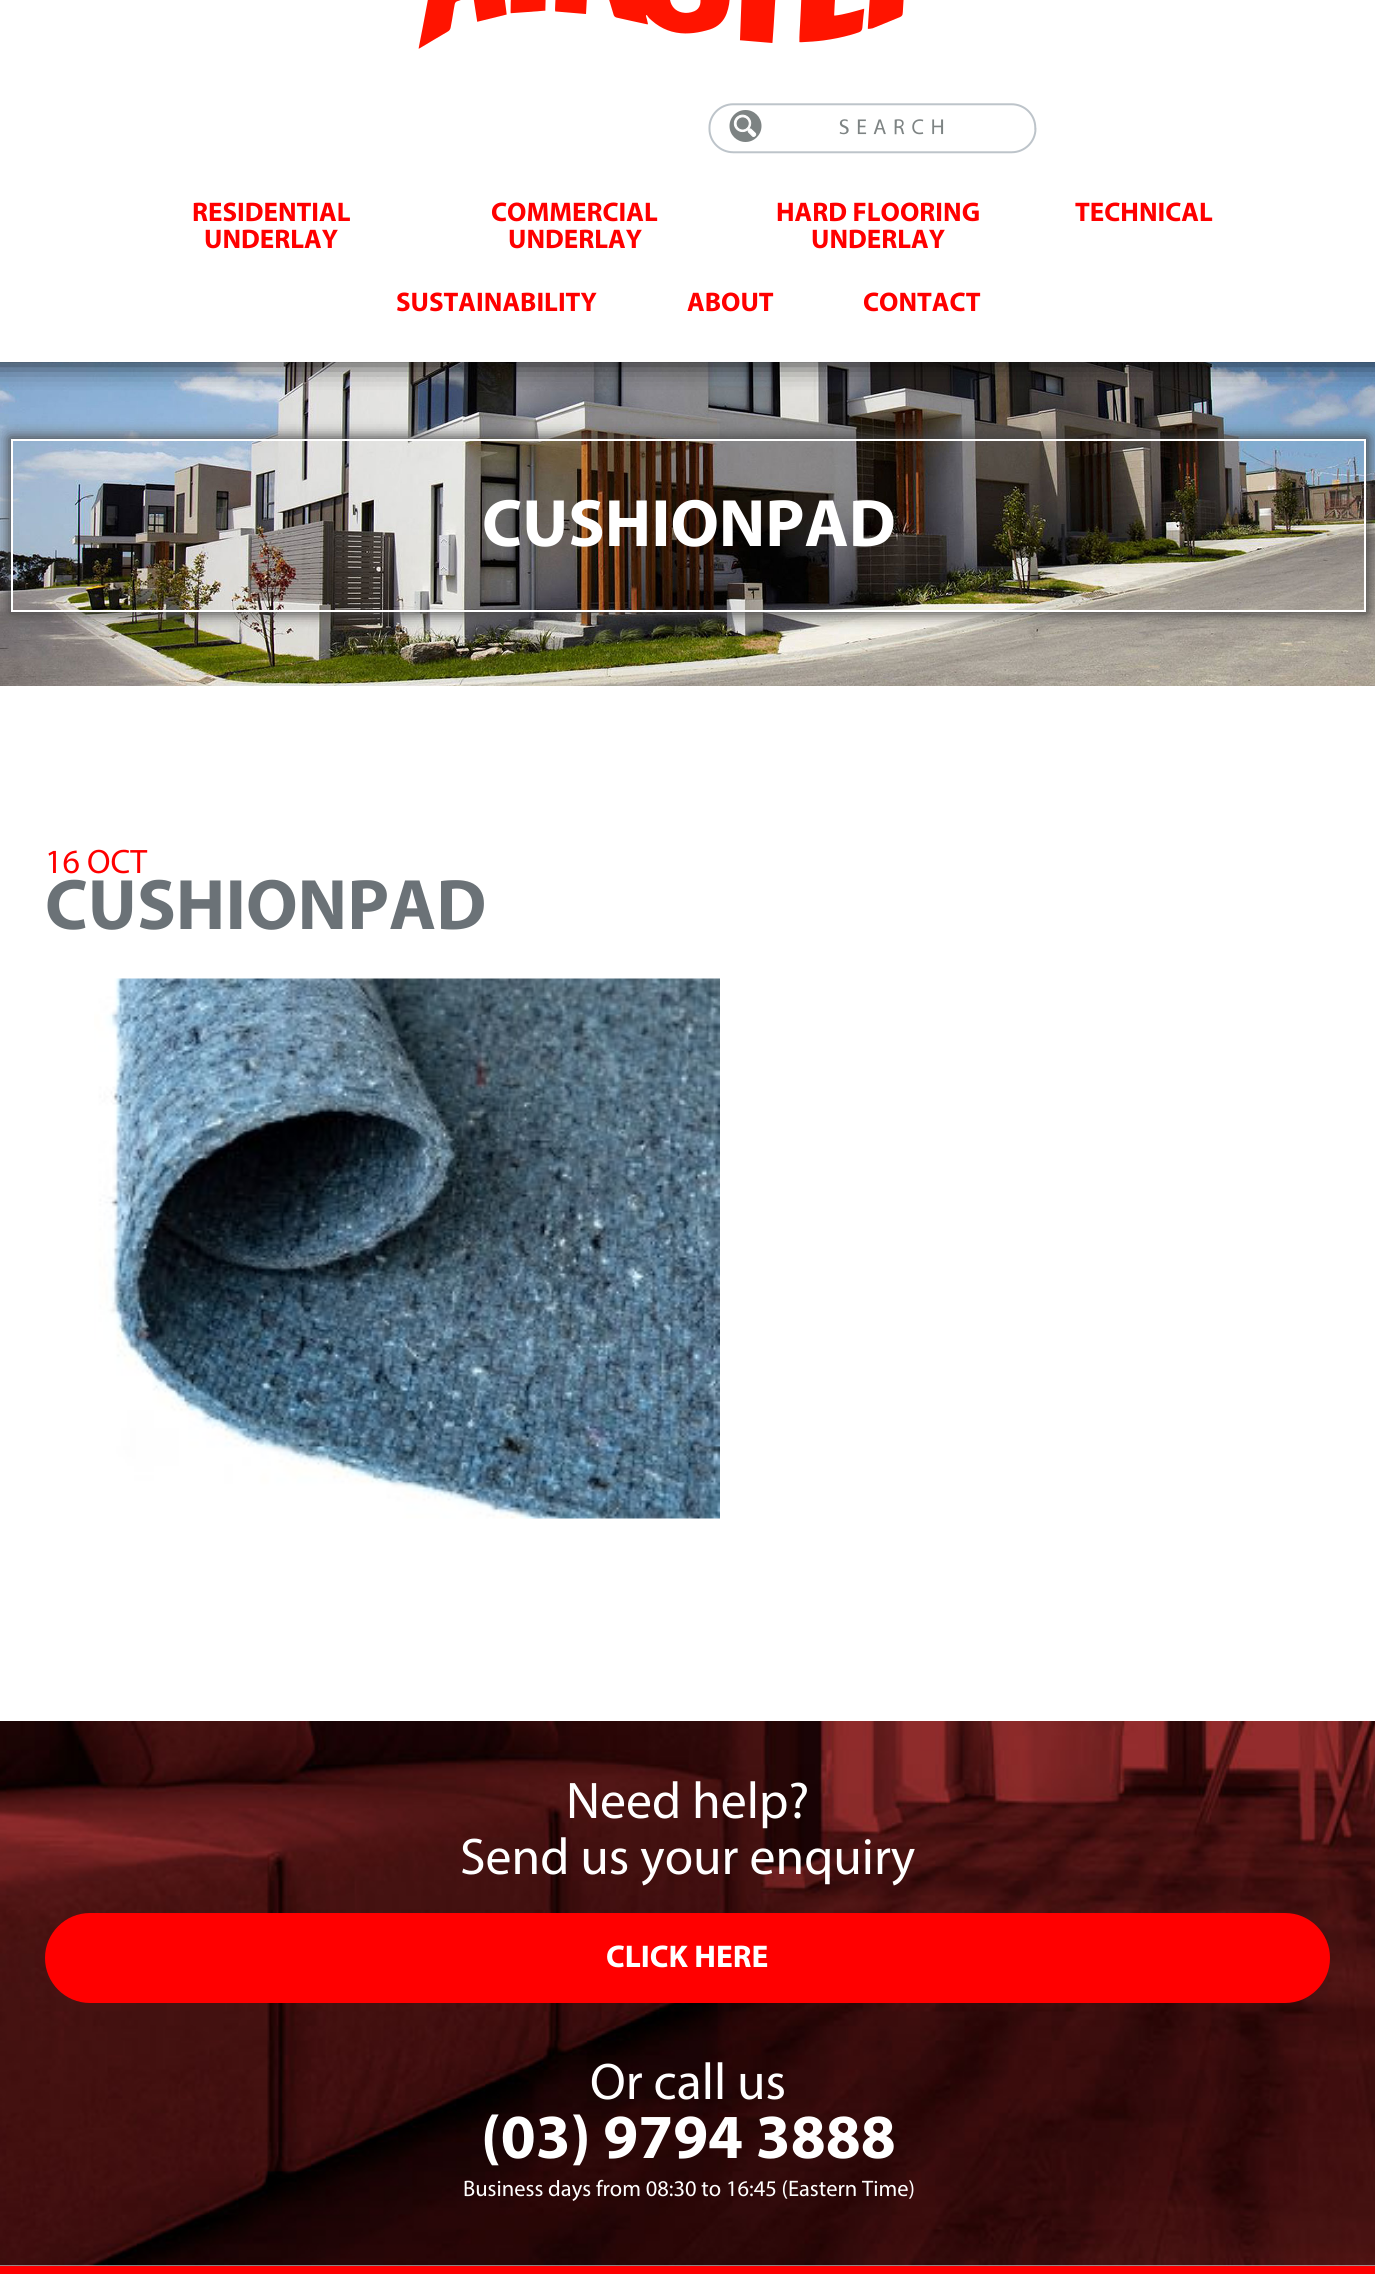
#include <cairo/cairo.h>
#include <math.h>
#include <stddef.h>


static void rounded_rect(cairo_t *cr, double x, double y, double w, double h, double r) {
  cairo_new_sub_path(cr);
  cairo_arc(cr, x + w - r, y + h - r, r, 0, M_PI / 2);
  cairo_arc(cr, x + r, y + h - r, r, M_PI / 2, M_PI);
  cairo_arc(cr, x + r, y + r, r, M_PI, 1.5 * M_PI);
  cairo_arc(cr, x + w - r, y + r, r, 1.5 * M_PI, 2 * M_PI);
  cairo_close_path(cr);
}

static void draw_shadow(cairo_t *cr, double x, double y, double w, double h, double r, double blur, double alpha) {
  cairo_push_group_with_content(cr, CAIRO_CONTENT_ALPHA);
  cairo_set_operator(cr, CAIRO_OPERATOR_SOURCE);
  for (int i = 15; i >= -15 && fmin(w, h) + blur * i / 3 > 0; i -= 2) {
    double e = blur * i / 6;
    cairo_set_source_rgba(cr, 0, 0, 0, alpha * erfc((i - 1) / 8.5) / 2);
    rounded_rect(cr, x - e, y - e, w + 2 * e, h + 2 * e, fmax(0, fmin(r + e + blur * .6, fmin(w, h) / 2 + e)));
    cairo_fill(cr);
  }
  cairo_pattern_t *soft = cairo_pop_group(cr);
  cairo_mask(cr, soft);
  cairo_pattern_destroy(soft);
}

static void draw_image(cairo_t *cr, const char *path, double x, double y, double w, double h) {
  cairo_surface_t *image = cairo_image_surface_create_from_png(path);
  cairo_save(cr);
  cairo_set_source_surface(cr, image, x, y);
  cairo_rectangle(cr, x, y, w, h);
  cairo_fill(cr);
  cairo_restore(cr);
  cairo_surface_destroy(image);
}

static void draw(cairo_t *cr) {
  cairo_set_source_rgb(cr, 1, 1, 1);
  cairo_paint(cr);
  draw_image(cr, "images/3.png", 0, 362, 1375, 324);
  cairo_save(cr);
  cairo_rectangle(cr, 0, 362, 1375, 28);
  cairo_clip(cr);
  cairo_set_source_rgb(cr, 0, 0, 0);
  draw_shadow(cr, -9, -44, 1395, 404, 0, 14.5, 1);
  cairo_restore(cr);
  draw_image(cr, "images/1.png", 418, 0, 486, 49);
  draw_image(cr, "images/2.png", 708, 103, 329, 51);
  cairo_save(cr);
  cairo_set_fill_rule(cr, CAIRO_FILL_RULE_EVEN_ODD);
  cairo_new_path(cr);
  cairo_move_to(cr, 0, 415);
  cairo_line_to(cr, 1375, 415);
  cairo_line_to(cr, 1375, 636);
  cairo_line_to(cr, 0, 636);
  cairo_close_path(cr);
  cairo_move_to(cr, 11, 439);
  cairo_line_to(cr, 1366, 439);
  cairo_line_to(cr, 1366, 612);
  cairo_line_to(cr, 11, 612);
  cairo_close_path(cr);
  cairo_clip(cr);
  cairo_set_source_rgb(cr, 68 / 255.0, 68 / 255.0, 68 / 255.0);
  draw_shadow(cr, 9, 437, 1359, 177, 0, 7, 1);
  cairo_restore(cr);
  cairo_rectangle(cr, 12, 440, 1353, 171);
  cairo_set_source_rgb(cr, 1, 1, 1);
  cairo_stroke(cr);
  draw_image(cr, "images/4.png", 94, 978, 626, 541);
  draw_image(cr, "images/5.png", 0, 1721, 1375, 545);
  cairo_set_source_rgb(cr, 1, 0, 0);
  rounded_rect(cr, 45, 1913, 1285, 90, 45);
  cairo_fill(cr);
  cairo_rectangle(cr, 0, 2266, 1375, 8);
  cairo_fill(cr);
  cairo_select_font_face(cr, "Myriad", CAIRO_FONT_SLANT_NORMAL, CAIRO_FONT_WEIGHT_BOLD);
  cairo_set_font_size(cr, 27);
  cairo_move_to(cr, 192, 221);
  cairo_show_text(cr, "RESIDENTIAL");
  cairo_move_to(cr, 204, 248);
  cairo_show_text(cr, "UNDERLAY");
  cairo_move_to(cr, 491, 221);
  cairo_show_text(cr, "COMMERCIAL");
  cairo_move_to(cr, 508, 248);
  cairo_show_text(cr, "UNDERLAY");
  cairo_move_to(cr, 776, 221);
  cairo_show_text(cr, "HARD FLOORING");
  cairo_move_to(cr, 811, 248);
  cairo_show_text(cr, "UNDERLAY");
  cairo_move_to(cr, 1075, 221);
  cairo_show_text(cr, "TECHNICAL");
  cairo_move_to(cr, 396, 311);
  cairo_show_text(cr, "SUSTAINABILITY");
  cairo_move_to(cr, 687, 311);
  cairo_show_text(cr, "ABOUT");
  cairo_move_to(cr, 863, 311);
  cairo_show_text(cr, "CONTACT");
  cairo_set_font_size(cr, 67.5);
  cairo_set_source_rgb(cr, 1, 1, 1);
  cairo_move_to(cr, 482, 546);
  cairo_show_text(cr, "CUSHIONPAD");
  cairo_select_font_face(cr, "Myriad", CAIRO_FONT_SLANT_NORMAL, CAIRO_FONT_WEIGHT_NORMAL);
  cairo_set_font_size(cr, 34);
  cairo_set_source_rgb(cr, 1, 0, 0);
  cairo_move_to(cr, 45, 873);
  cairo_show_text(cr, "16 OCT");
  cairo_select_font_face(cr, "Myriad", CAIRO_FONT_SLANT_NORMAL, CAIRO_FONT_WEIGHT_BOLD);
  cairo_set_font_size(cr, 72);
  cairo_set_source_rgb(cr, 107 / 255.0, 114 / 255.0, 119 / 255.0);
  cairo_move_to(cr, 45, 929);
  cairo_show_text(cr, "CUSHIONPAD");
  cairo_select_font_face(cr, "Myriad", CAIRO_FONT_SLANT_NORMAL, CAIRO_FONT_WEIGHT_NORMAL);
  cairo_set_font_size(cr, 51.75);
  cairo_set_source_rgb(cr, 1, 1, 1);
  cairo_move_to(cr, 566, 1818);
  cairo_show_text(cr, "Need help?");
  cairo_move_to(cr, 460, 1874);
  cairo_show_text(cr, "Send us your enquiry");
  cairo_select_font_face(cr, "Myriad", CAIRO_FONT_SLANT_NORMAL, CAIRO_FONT_WEIGHT_BOLD);
  cairo_set_font_size(cr, 31.5);
  cairo_move_to(cr, 606, 1967);
  cairo_show_text(cr, "CLICK HERE");
  cairo_select_font_face(cr, "Myriad", CAIRO_FONT_SLANT_NORMAL, CAIRO_FONT_WEIGHT_NORMAL);
  cairo_set_font_size(cr, 51.75);
  cairo_move_to(cr, 590, 2099);
  cairo_show_text(cr, "Or call us");
  cairo_select_font_face(cr, "Myriad", CAIRO_FONT_SLANT_NORMAL, CAIRO_FONT_WEIGHT_BOLD);
  cairo_set_font_size(cr, 63);
  cairo_move_to(cr, 481, 2158);
  cairo_show_text(cr, "(03) 9794 3888");
  cairo_select_font_face(cr, "Myriad", CAIRO_FONT_SLANT_NORMAL, CAIRO_FONT_WEIGHT_NORMAL);
  cairo_set_font_size(cr, 22.5);
  cairo_move_to(cr, 463, 2196);
  cairo_show_text(cr, "Business days from 08:30 to 16:45 (Eastern Time)");
}

int main(void) {
  cairo_surface_t *surface = cairo_image_surface_create(CAIRO_FORMAT_RGB24, 1375, 2274);
  cairo_t *cr = cairo_create(surface);
  cairo_font_options_t *options = cairo_font_options_create();
  cairo_font_options_set_hint_metrics(options, CAIRO_HINT_METRICS_OFF);
  cairo_font_options_set_hint_style(options, CAIRO_HINT_STYLE_NONE);
  cairo_set_font_options(cr, options);
  cairo_set_miter_limit(cr, 4);
  draw(cr);
  cairo_surface_write_to_png(surface, "out.png");
  cairo_font_options_destroy(options);
  cairo_destroy(cr);
  cairo_surface_destroy(surface);
  return 0;
}
